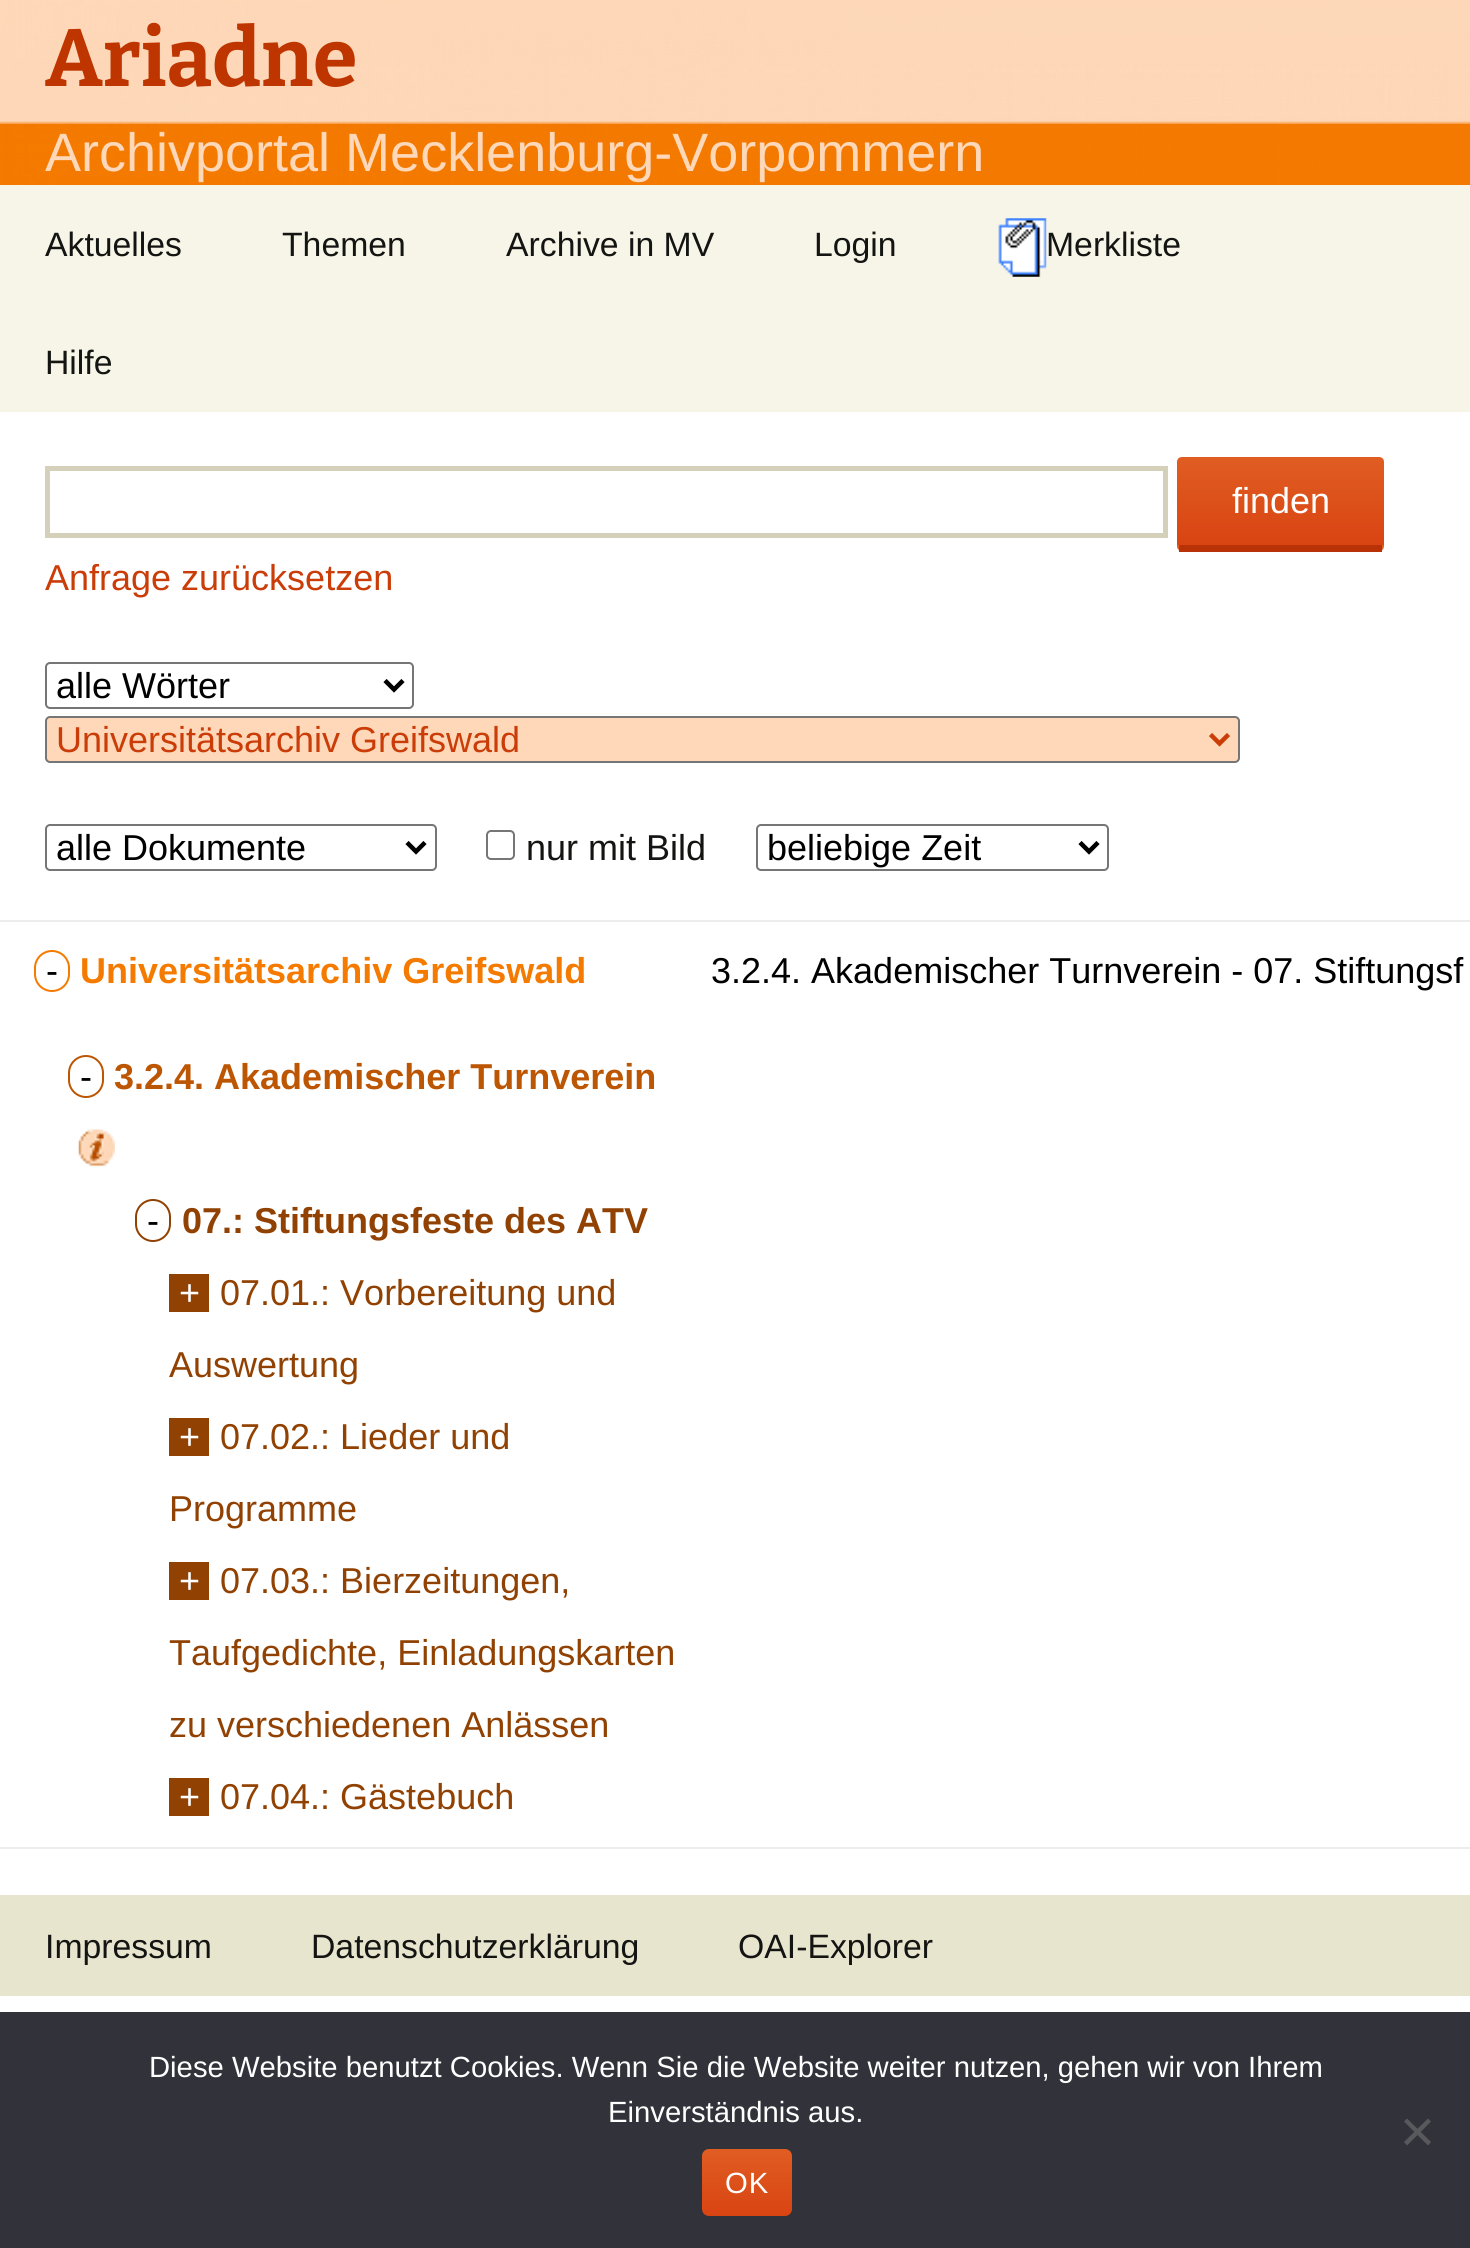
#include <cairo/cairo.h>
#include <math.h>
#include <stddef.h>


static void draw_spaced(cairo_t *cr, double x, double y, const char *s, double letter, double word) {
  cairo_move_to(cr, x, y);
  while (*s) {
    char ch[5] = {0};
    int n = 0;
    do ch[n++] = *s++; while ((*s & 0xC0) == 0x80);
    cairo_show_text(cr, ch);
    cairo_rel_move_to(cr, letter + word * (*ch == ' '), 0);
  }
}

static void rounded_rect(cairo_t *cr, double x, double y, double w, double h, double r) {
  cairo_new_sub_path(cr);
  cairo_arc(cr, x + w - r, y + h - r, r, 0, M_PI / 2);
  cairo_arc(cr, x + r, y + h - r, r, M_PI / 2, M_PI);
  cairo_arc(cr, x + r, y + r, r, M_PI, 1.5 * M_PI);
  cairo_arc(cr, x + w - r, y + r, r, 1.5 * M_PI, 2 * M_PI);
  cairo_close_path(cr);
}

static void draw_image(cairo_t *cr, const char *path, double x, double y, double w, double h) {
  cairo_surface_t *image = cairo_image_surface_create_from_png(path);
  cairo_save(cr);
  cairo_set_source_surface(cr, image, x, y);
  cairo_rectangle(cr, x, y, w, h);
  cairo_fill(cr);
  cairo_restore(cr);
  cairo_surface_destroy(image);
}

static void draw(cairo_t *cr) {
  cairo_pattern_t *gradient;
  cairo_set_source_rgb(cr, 1, 1, 1);
  cairo_paint(cr);
  draw_image(cr, "images/1.png", 0, 0, 1470, 185);
  cairo_set_source_rgb(cr, 247 / 255.0, 245 / 255.0, 231 / 255.0);
  cairo_rectangle(cr, 0, 185, 1470, 227);
  cairo_fill(cr);
  draw_image(cr, "images/2.png", 998, 218, 49, 59);
  cairo_rectangle(cr, 47.5, 468.5, 1118, 67);
  cairo_set_source_rgb(cr, 212 / 255.0, 208 / 255.0, 186 / 255.0);
  cairo_set_line_width(cr, 5);
  cairo_stroke(cr);
  gradient = cairo_pattern_create_linear(1280, 457, 1280, 545);
  cairo_pattern_add_color_stop_rgba(gradient, 0, 224 / 255.0, 93 / 255.0, 34 / 255.0, 1);
  cairo_pattern_add_color_stop_rgba(gradient, 1, 217 / 255.0, 68 / 255.0, 18 / 255.0, 1);
  cairo_set_source(cr, gradient);
  cairo_pattern_destroy(gradient);
  cairo_new_path(cr);
  cairo_move_to(cr, 1182, 457);
  cairo_line_to(cr, 1379, 457);
  cairo_curve_to(cr, 1382, 457, 1384, 459, 1384, 462);
  cairo_line_to(cr, 1384, 545);
  cairo_line_to(cr, 1177, 545);
  cairo_line_to(cr, 1177, 462);
  cairo_curve_to(cr, 1177, 459, 1179, 457, 1182, 457);
  cairo_close_path(cr);
  cairo_fill(cr);
  gradient = cairo_pattern_create_linear(1280, 545, 1280, 632);
  cairo_pattern_add_color_stop_rgba(gradient, 0, 224 / 255.0, 93 / 255.0, 34 / 255.0, 1);
  cairo_pattern_add_color_stop_rgba(gradient, 1, 217 / 255.0, 68 / 255.0, 18 / 255.0, 1);
  cairo_set_source(cr, gradient);
  cairo_pattern_destroy(gradient);
  cairo_new_path(cr);
  cairo_move_to(cr, 1177, 545);
  cairo_line_to(cr, 1384, 545);
  cairo_line_to(cr, 1384, 546);
  cairo_curve_to(cr, 1384, 549, 1382, 551, 1379, 551);
  cairo_line_to(cr, 1182, 551);
  cairo_curve_to(cr, 1179, 551, 1177, 549, 1177, 546);
  cairo_close_path(cr);
  cairo_fill(cr);
  cairo_set_source_rgb(cr, 185 / 255.0, 50 / 255.0, 7 / 255.0);
  cairo_rectangle(cr, 1179, 545, 203, 7);
  cairo_fill(cr);
  rounded_rect(cr, 46, 663, 367, 45, 4);
  cairo_set_source_rgb(cr, 118 / 255.0, 118 / 255.0, 118 / 255.0);
  cairo_set_line_width(cr, 2);
  cairo_stroke(cr);
  cairo_new_path(cr);
  cairo_move_to(cr, 385, 680.5);
  cairo_line_to(cr, 394, 689.5);
  cairo_line_to(cr, 403, 680.5);
  cairo_set_source_rgb(cr, 0, 0, 0);
  cairo_set_line_width(cr, 4.5);
  cairo_stroke(cr);
  cairo_set_source_rgb(cr, 254 / 255.0, 216 / 255.0, 184 / 255.0);
  rounded_rect(cr, 46, 717, 1193, 45, 4);
  cairo_fill_preserve(cr);
  cairo_set_source_rgb(cr, 118 / 255.0, 118 / 255.0, 118 / 255.0);
  cairo_set_line_width(cr, 2);
  cairo_stroke(cr);
  cairo_new_path(cr);
  cairo_move_to(cr, 1210.5, 734.5);
  cairo_line_to(cr, 1219.5, 743.5);
  cairo_line_to(cr, 1228.5, 734.5);
  cairo_set_source_rgb(cr, 202 / 255.0, 60 / 255.0, 8 / 255.0);
  cairo_set_line_width(cr, 4.5);
  cairo_stroke(cr);
  rounded_rect(cr, 46, 825, 390, 45, 4);
  cairo_set_source_rgb(cr, 118 / 255.0, 118 / 255.0, 118 / 255.0);
  cairo_set_line_width(cr, 2);
  cairo_stroke(cr);
  cairo_new_path(cr);
  cairo_move_to(cr, 407, 842.5);
  cairo_line_to(cr, 416, 851.5);
  cairo_line_to(cr, 425, 842.5);
  cairo_set_source_rgb(cr, 0, 0, 0);
  cairo_set_line_width(cr, 4.5);
  cairo_stroke(cr);
  rounded_rect(cr, 487, 831, 27, 28, 4);
  cairo_set_source_rgb(cr, 118 / 255.0, 118 / 255.0, 118 / 255.0);
  cairo_set_line_width(cr, 2);
  cairo_stroke(cr);
  rounded_rect(cr, 757, 825, 351, 45, 4);
  cairo_stroke(cr);
  cairo_new_path(cr);
  cairo_move_to(cr, 1080, 842.5);
  cairo_line_to(cr, 1089, 851.5);
  cairo_line_to(cr, 1098, 842.5);
  cairo_set_source_rgb(cr, 0, 0, 0);
  cairo_set_line_width(cr, 4.5);
  cairo_stroke(cr);
  cairo_set_source_rgb(cr, 237 / 255.0, 237 / 255.0, 237 / 255.0);
  cairo_rectangle(cr, 0, 1847, 1470, 2);
  cairo_fill(cr);
  rounded_rect(cr, 35, 951, 34, 40, 17);
  cairo_set_source_rgb(cr, 244 / 255.0, 122 / 255.0, 0);
  cairo_set_line_width(cr, 2);
  cairo_stroke(cr);
  rounded_rect(cr, 69, 1056, 34, 41, 17);
  cairo_set_source_rgb(cr, 188 / 255.0, 86 / 255.0, 3 / 255.0);
  cairo_stroke(cr);
  draw_image(cr, "images/3.png", 78, 1129, 37, 38);
  rounded_rect(cr, 136, 1200, 34, 41, 17);
  cairo_set_source_rgb(cr, 145 / 255.0, 66 / 255.0, 3 / 255.0);
  cairo_stroke(cr);
  cairo_rectangle(cr, 169, 1274, 40, 38);
  cairo_fill(cr);
  cairo_rectangle(cr, 169, 1418, 40, 38);
  cairo_fill(cr);
  cairo_rectangle(cr, 169, 1562, 40, 38);
  cairo_fill(cr);
  cairo_rectangle(cr, 169, 1778, 40, 38);
  cairo_fill(cr);
  cairo_set_source_rgb(cr, 237 / 255.0, 237 / 255.0, 237 / 255.0);
  cairo_rectangle(cr, 0, 920, 1470, 2);
  cairo_fill(cr);
  cairo_set_source_rgb(cr, 232 / 255.0, 229 / 255.0, 206 / 255.0);
  cairo_rectangle(cr, 0, 1895, 1470, 101);
  cairo_fill(cr);
  cairo_set_source_rgb(cr, 50 / 255.0, 50 / 255.0, 58 / 255.0);
  cairo_rectangle(cr, 0, 2012, 1470, 236);
  cairo_fill(cr);
  cairo_set_source_rgb(cr, 89 / 255.0, 89 / 255.0, 93 / 255.0);
  cairo_new_path(cr);
  cairo_move_to(cr, 1428, 2118.5);
  cairo_line_to(cr, 1431, 2121.5);
  cairo_line_to(cr, 1407, 2145.5);
  cairo_line_to(cr, 1404, 2142);
  cairo_close_path(cr);
  cairo_fill(cr);
  cairo_new_path(cr);
  cairo_move_to(cr, 1404, 2121.5);
  cairo_line_to(cr, 1407, 2118.5);
  cairo_line_to(cr, 1431, 2142);
  cairo_line_to(cr, 1428, 2145.5);
  cairo_close_path(cr);
  cairo_fill(cr);
  gradient = cairo_pattern_create_linear(747, 2149, 747, 2216);
  cairo_pattern_add_color_stop_rgba(gradient, 0, 224 / 255.0, 93 / 255.0, 34 / 255.0, 1);
  cairo_pattern_add_color_stop_rgba(gradient, 1, 217 / 255.0, 68 / 255.0, 18 / 255.0, 1);
  cairo_set_source(cr, gradient);
  cairo_pattern_destroy(gradient);
  rounded_rect(cr, 702, 2149, 90, 67, 7);
  cairo_fill(cr);
  cairo_select_font_face(cr, "Bitter", CAIRO_FONT_SLANT_NORMAL, CAIRO_FONT_WEIGHT_BOLD);
  cairo_set_font_size(cr, 81);
  cairo_set_source_rgb(cr, 191 / 255.0, 53 / 255.0, 0);
  cairo_move_to(cr, 45, 86);
  cairo_show_text(cr, "Ariadne");
  cairo_select_font_face(cr, "Liberation Sans", CAIRO_FONT_SLANT_NORMAL, CAIRO_FONT_WEIGHT_NORMAL);
  cairo_set_font_size(cr, 54);
  cairo_set_source_rgb(cr, 254 / 255.0, 216 / 255.0, 184 / 255.0);
  cairo_move_to(cr, 45, 171);
  cairo_show_text(cr, "Archivportal Mecklenburg-Vorpommern");
  cairo_set_font_size(cr, 33.75);
  cairo_set_source_rgb(cr, 20 / 255.0, 20 / 255.0, 18 / 255.0);
  cairo_move_to(cr, 45, 256);
  cairo_show_text(cr, "Aktuelles");
  cairo_move_to(cr, 282, 256);
  cairo_show_text(cr, "Themen");
  cairo_move_to(cr, 506, 256);
  cairo_show_text(cr, "Archive in MV");
  cairo_move_to(cr, 814, 256);
  cairo_show_text(cr, "Login");
  cairo_move_to(cr, 1046, 256);
  cairo_show_text(cr, "Merkliste");
  cairo_move_to(cr, 45, 374);
  cairo_show_text(cr, "Hilfe");
  cairo_set_font_size(cr, 36);
  cairo_set_source_rgb(cr, 1, 1, 1);
  cairo_move_to(cr, 1232, 513);
  cairo_show_text(cr, "finden");
  cairo_set_source_rgb(cr, 202 / 255.0, 60 / 255.0, 8 / 255.0);
  cairo_move_to(cr, 45, 590);
  cairo_show_text(cr, "Anfrage zurücksetzen");
  cairo_set_source_rgb(cr, 0, 0, 0);
  cairo_move_to(cr, 56, 698);
  cairo_show_text(cr, "alle Wörter");
  cairo_set_source_rgb(cr, 202 / 255.0, 60 / 255.0, 8 / 255.0);
  cairo_move_to(cr, 56, 752);
  cairo_show_text(cr, "Universitätsarchiv Greifswald");
  cairo_set_source_rgb(cr, 0, 0, 0);
  cairo_move_to(cr, 56, 860);
  cairo_show_text(cr, "alle Dokumente");
  cairo_set_source_rgb(cr, 20 / 255.0, 20 / 255.0, 18 / 255.0);
  cairo_move_to(cr, 526, 860);
  cairo_show_text(cr, "nur mit Bild");
  cairo_set_source_rgb(cr, 0, 0, 0);
  cairo_move_to(cr, 767, 860);
  cairo_show_text(cr, "beliebige Zeit");
  cairo_move_to(cr, 46, 983);
  cairo_show_text(cr, "-");
  cairo_select_font_face(cr, "Liberation Sans", CAIRO_FONT_SLANT_NORMAL, CAIRO_FONT_WEIGHT_BOLD);
  cairo_set_source_rgb(cr, 244 / 255.0, 122 / 255.0, 0);
  cairo_move_to(cr, 80, 983);
  cairo_show_text(cr, "Universitätsarchiv Greifswald");
  cairo_select_font_face(cr, "Liberation Sans", CAIRO_FONT_SLANT_NORMAL, CAIRO_FONT_WEIGHT_NORMAL);
  cairo_set_source_rgb(cr, 0, 0, 0);
  cairo_move_to(cr, 80, 1089);
  cairo_show_text(cr, "-");
  cairo_select_font_face(cr, "Liberation Sans", CAIRO_FONT_SLANT_NORMAL, CAIRO_FONT_WEIGHT_BOLD);
  cairo_set_source_rgb(cr, 188 / 255.0, 86 / 255.0, 3 / 255.0);
  cairo_move_to(cr, 114, 1089);
  cairo_show_text(cr, "3.2.4. Akademischer Turnverein");
  cairo_select_font_face(cr, "Liberation Sans", CAIRO_FONT_SLANT_NORMAL, CAIRO_FONT_WEIGHT_NORMAL);
  cairo_set_source_rgb(cr, 0, 0, 0);
  cairo_move_to(cr, 147, 1233);
  cairo_show_text(cr, "-");
  cairo_select_font_face(cr, "Liberation Sans", CAIRO_FONT_SLANT_NORMAL, CAIRO_FONT_WEIGHT_BOLD);
  cairo_set_source_rgb(cr, 145 / 255.0, 66 / 255.0, 3 / 255.0);
  cairo_move_to(cr, 182, 1233);
  cairo_show_text(cr, "07.: Stiftungsfeste des ATV");
  cairo_select_font_face(cr, "Liberation Sans", CAIRO_FONT_SLANT_NORMAL, CAIRO_FONT_WEIGHT_NORMAL);
  cairo_set_source_rgb(cr, 1, 1, 1);
  cairo_move_to(cr, 179, 1305);
  cairo_show_text(cr, "+");
  cairo_set_source_rgb(cr, 145 / 255.0, 66 / 255.0, 3 / 255.0);
  cairo_move_to(cr, 220, 1305);
  cairo_show_text(cr, "07.01.: Vorbereitung und");
  cairo_move_to(cr, 169, 1377);
  cairo_show_text(cr, "Auswertung");
  cairo_set_source_rgb(cr, 1, 1, 1);
  cairo_move_to(cr, 179, 1449);
  cairo_show_text(cr, "+");
  cairo_set_source_rgb(cr, 145 / 255.0, 66 / 255.0, 3 / 255.0);
  cairo_move_to(cr, 220, 1449);
  cairo_show_text(cr, "07.02.: Lieder und");
  cairo_move_to(cr, 169, 1521);
  cairo_show_text(cr, "Programme");
  cairo_set_source_rgb(cr, 1, 1, 1);
  cairo_move_to(cr, 179, 1593);
  cairo_show_text(cr, "+");
  cairo_set_source_rgb(cr, 145 / 255.0, 66 / 255.0, 3 / 255.0);
  cairo_move_to(cr, 220, 1593);
  cairo_show_text(cr, "07.03.: Bierzeitungen,");
  cairo_move_to(cr, 169, 1665);
  cairo_show_text(cr, "Taufgedichte, Einladungskarten");
  cairo_move_to(cr, 169, 1737);
  cairo_show_text(cr, "zu verschiedenen Anlässen");
  cairo_set_source_rgb(cr, 1, 1, 1);
  cairo_move_to(cr, 179, 1809);
  cairo_show_text(cr, "+");
  cairo_set_source_rgb(cr, 145 / 255.0, 66 / 255.0, 3 / 255.0);
  cairo_move_to(cr, 220, 1809);
  cairo_show_text(cr, "07.04.: Gästebuch");
  cairo_set_source_rgb(cr, 0, 0, 0);
  cairo_move_to(cr, 711, 983);
  cairo_show_text(cr, "3.2.4. Akademischer Turnverein - 07. Stiftungsf");
  cairo_set_font_size(cr, 33.75);
  cairo_set_source_rgb(cr, 20 / 255.0, 20 / 255.0, 18 / 255.0);
  cairo_move_to(cr, 45, 1958);
  cairo_show_text(cr, "Impressum");
  cairo_move_to(cr, 311, 1958);
  cairo_show_text(cr, "Datenschutzerklärung");
  cairo_move_to(cr, 738, 1958);
  cairo_show_text(cr, "OAI-Explorer");
  cairo_set_font_size(cr, 29.25);
  cairo_set_source_rgb(cr, 1, 1, 1);
  cairo_move_to(cr, 149, 2077);
  cairo_show_text(cr, "Diese Website benutzt Cookies. Wenn Sie die Website weiter nutzen, gehen wir von Ihrem");
  cairo_move_to(cr, 608, 2122);
  cairo_show_text(cr, "Einverständnis aus.");
  draw_spaced(cr, 725, 2193, "OK", 1, 0);
}

int main(void) {
  cairo_surface_t *surface = cairo_image_surface_create(CAIRO_FORMAT_RGB24, 1470, 2248);
  cairo_t *cr = cairo_create(surface);
  cairo_font_options_t *options = cairo_font_options_create();
  cairo_font_options_set_hint_metrics(options, CAIRO_HINT_METRICS_OFF);
  cairo_font_options_set_hint_style(options, CAIRO_HINT_STYLE_NONE);
  cairo_set_font_options(cr, options);
  cairo_set_miter_limit(cr, 4);
  draw(cr);
  cairo_surface_write_to_png(surface, "out.png");
  cairo_font_options_destroy(options);
  cairo_destroy(cr);
  cairo_surface_destroy(surface);
  return 0;
}
